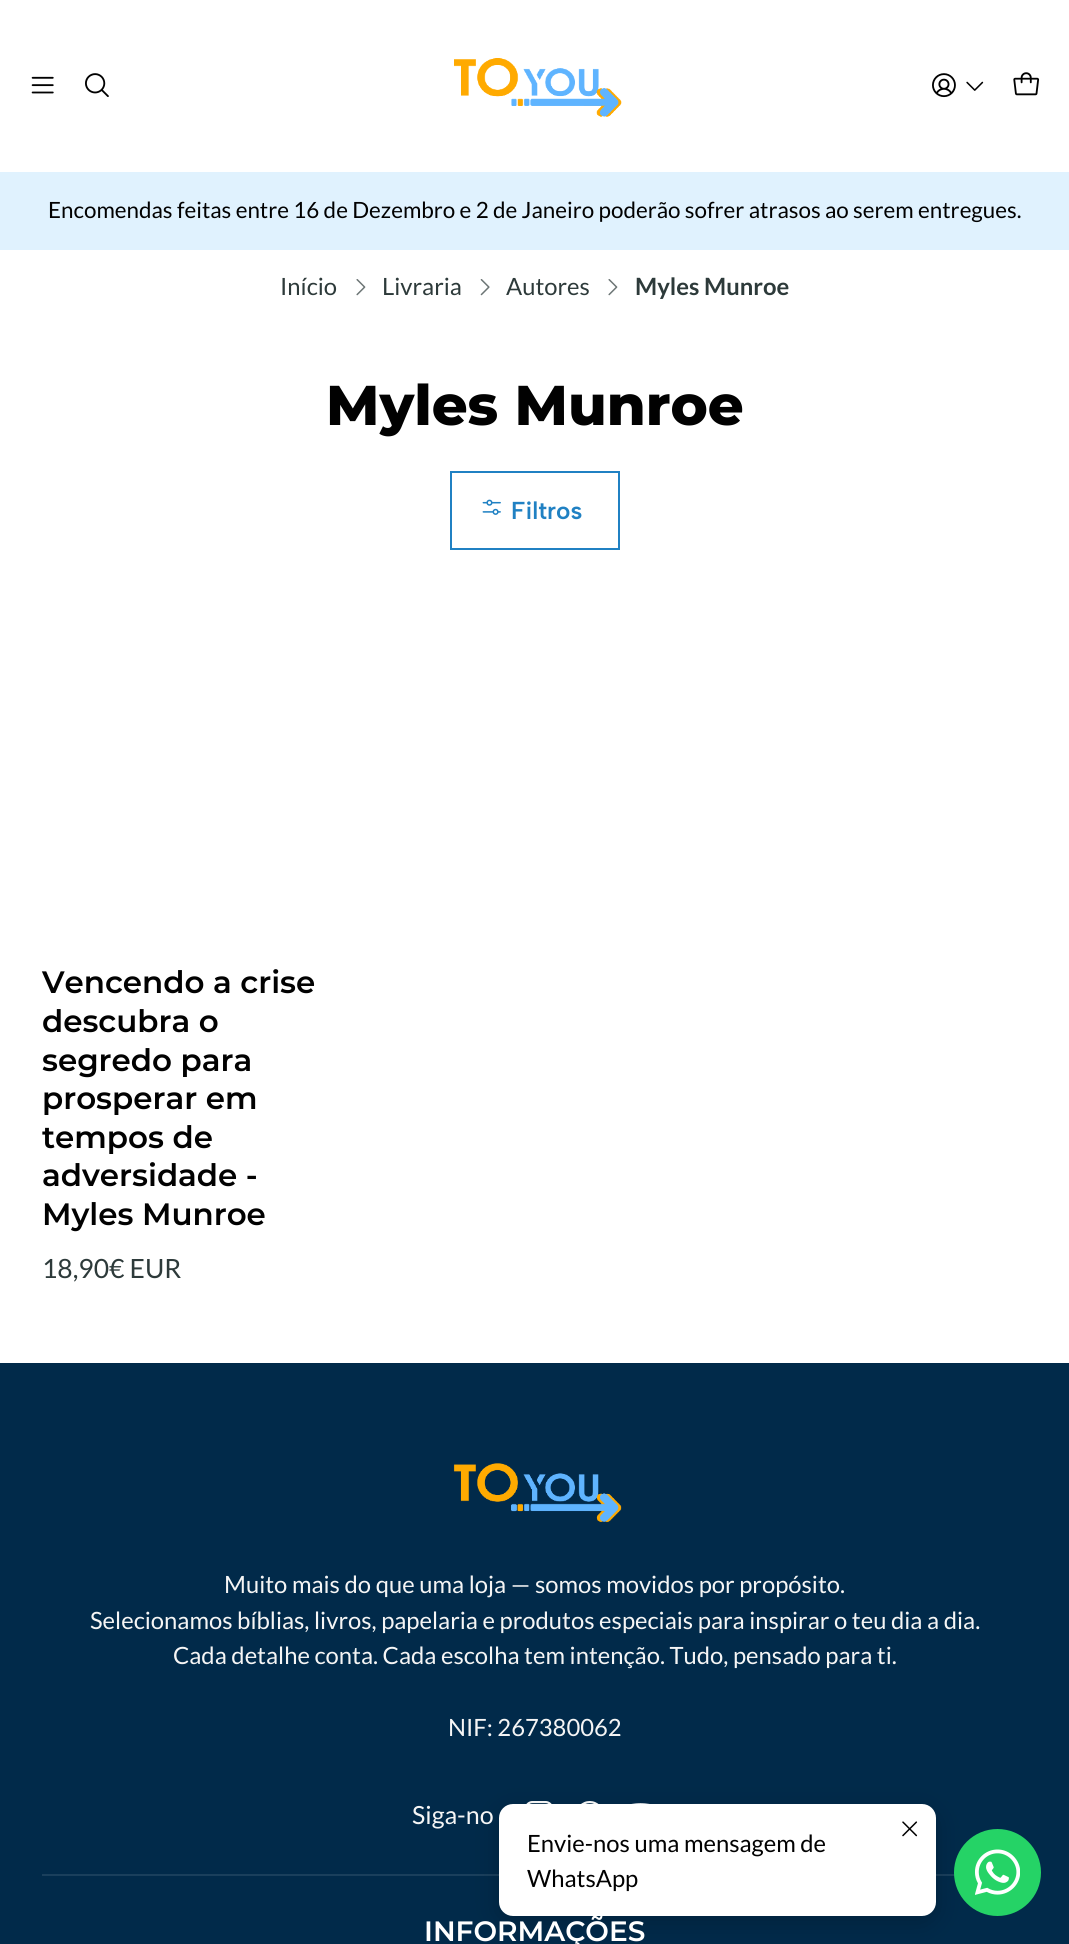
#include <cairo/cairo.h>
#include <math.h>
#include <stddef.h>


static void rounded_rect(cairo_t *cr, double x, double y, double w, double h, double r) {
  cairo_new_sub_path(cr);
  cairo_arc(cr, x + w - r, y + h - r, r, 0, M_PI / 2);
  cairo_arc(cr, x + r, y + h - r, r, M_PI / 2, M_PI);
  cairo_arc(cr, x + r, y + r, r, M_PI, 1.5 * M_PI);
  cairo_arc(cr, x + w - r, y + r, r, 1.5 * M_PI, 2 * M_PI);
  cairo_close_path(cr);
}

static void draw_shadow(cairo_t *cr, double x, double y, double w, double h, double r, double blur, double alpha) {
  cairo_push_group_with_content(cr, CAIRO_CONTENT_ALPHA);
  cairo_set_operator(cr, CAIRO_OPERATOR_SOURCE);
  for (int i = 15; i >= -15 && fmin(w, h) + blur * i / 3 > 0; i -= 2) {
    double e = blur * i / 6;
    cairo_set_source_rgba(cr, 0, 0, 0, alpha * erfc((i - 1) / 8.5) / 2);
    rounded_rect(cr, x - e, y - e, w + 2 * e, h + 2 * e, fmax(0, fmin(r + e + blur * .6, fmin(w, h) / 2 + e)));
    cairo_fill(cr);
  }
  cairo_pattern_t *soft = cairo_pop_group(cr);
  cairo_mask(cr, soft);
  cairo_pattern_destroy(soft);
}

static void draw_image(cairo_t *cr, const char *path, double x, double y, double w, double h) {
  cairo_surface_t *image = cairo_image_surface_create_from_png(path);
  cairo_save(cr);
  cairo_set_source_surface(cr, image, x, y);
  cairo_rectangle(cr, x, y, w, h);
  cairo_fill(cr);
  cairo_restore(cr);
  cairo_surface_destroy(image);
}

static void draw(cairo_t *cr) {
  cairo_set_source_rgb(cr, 1, 1, 1);
  cairo_paint(cr);
  draw_image(cr, "images/1.png", 31, 76, 23, 18);
  draw_image(cr, "images/2.png", 85, 73, 24, 24);
  draw_image(cr, "images/3.png", 454, 58, 168, 59);
  draw_image(cr, "images/4.png", 932, 73, 24, 25);
  draw_image(cr, "images/5.png", 966, 81, 18, 10);
  draw_image(cr, "images/6.png", 1013, 72, 27, 24);
  cairo_set_source_rgb(cr, 224 / 255.0, 242 / 255.0, 254 / 255.0);
  cairo_rectangle(cr, 0, 172, 1069, 78);
  cairo_fill(cr);
  draw_image(cr, "images/7.png", 356, 279, 10, 17);
  draw_image(cr, "images/8.png", 480, 279, 10, 17);
  draw_image(cr, "images/7.png", 608, 279, 10, 17);
  cairo_rectangle(cr, 451, 472, 168, 77);
  cairo_set_source_rgb(cr, 32 / 255.0, 129 / 255.0, 195 / 255.0);
  cairo_stroke(cr);
  draw_image(cr, "images/9.png", 482, 499, 19, 16);
  cairo_set_source_rgb(cr, 1 / 255.0, 42 / 255.0, 74 / 255.0);
  cairo_rectangle(cr, 0, 1363, 1069, 581);
  cairo_fill(cr);
  draw_image(cr, "images/10.png", 453, 1463, 169, 60);
  draw_image(cr, "images/11.png", 526, 1801, 26, 3);
  draw_image(cr, "images/12.png", 581, 1801, 18, 3);
  draw_image(cr, "images/13.png", 631, 1803, 19, 1);
  cairo_set_source_rgb(cr, 26 / 255.0, 63 / 255.0, 92 / 255.0);
  cairo_rectangle(cr, 42, 1874, 913, 2);
  cairo_fill(cr);
  cairo_set_source_rgb(cr, 0, 0, 0);
  draw_shadow(cr, 499, 1811, 437, 112, 14, 13, 0.2);
  cairo_set_source_rgb(cr, 1, 1, 1);
  rounded_rect(cr, 499, 1804, 437, 112, 14);
  cairo_fill(cr);
  draw_image(cr, "images/14.png", 902, 1821, 16, 16);
  cairo_set_source_rgb(cr, 37 / 255.0, 211 / 255.0, 102 / 255.0);
  cairo_arc(cr, 997.5, 1872.5, 43.5, 0, 2 * M_PI);
  cairo_fill(cr);
  draw_image(cr, "images/15.png", 975, 1849, 45, 46);
  cairo_select_font_face(cr, "Lato", CAIRO_FONT_SLANT_NORMAL, CAIRO_FONT_WEIGHT_NORMAL);
  cairo_set_font_size(cr, 22.4);
  cairo_set_source_rgb(cr, 1 / 255.0, 1 / 255.0, 1 / 255.0);
  cairo_move_to(cr, 48, 218);
  cairo_show_text(cr, "Encomendas feitas entre 16 de Dezembro e 2 de Janeiro poderão sofrer atrasos ao serem entregues.");
  cairo_set_font_size(cr, 23.8);
  cairo_set_source_rgb(cr, 45 / 255.0, 58 / 255.0, 58 / 255.0);
  cairo_move_to(cr, 280, 295);
  cairo_show_text(cr, "Início");
  cairo_move_to(cr, 382, 295);
  cairo_show_text(cr, "Livraria");
  cairo_move_to(cr, 506, 295);
  cairo_show_text(cr, "Autores");
  cairo_select_font_face(cr, "Lato", CAIRO_FONT_SLANT_NORMAL, CAIRO_FONT_WEIGHT_BOLD);
  cairo_move_to(cr, 635, 295);
  cairo_show_text(cr, "Myles Munroe");
  cairo_select_font_face(cr, "Montserrat ExtraBold", CAIRO_FONT_SLANT_NORMAL, CAIRO_FONT_WEIGHT_NORMAL);
  cairo_set_font_size(cr, 56);
  cairo_set_source_rgb(cr, 1 / 255.0, 1 / 255.0, 1 / 255.0);
  cairo_move_to(cr, 326, 425);
  cairo_show_text(cr, "Myles Munroe");
  cairo_select_font_face(cr, "Albert Sans SemiBold", CAIRO_FONT_SLANT_NORMAL, CAIRO_FONT_WEIGHT_NORMAL);
  cairo_set_font_size(cr, 24.5);
  cairo_set_source_rgb(cr, 32 / 255.0, 129 / 255.0, 195 / 255.0);
  cairo_move_to(cr, 511, 519);
  cairo_show_text(cr, "Filtros");
  cairo_select_font_face(cr, "Montserrat SemiBold", CAIRO_FONT_SLANT_NORMAL, CAIRO_FONT_WEIGHT_NORMAL);
  cairo_set_font_size(cr, 30.9);
  cairo_set_source_rgb(cr, 1 / 255.0, 1 / 255.0, 1 / 255.0);
  cairo_move_to(cr, 42, 993);
  cairo_show_text(cr, "Vencendo a crise");
  cairo_move_to(cr, 42, 1032);
  cairo_show_text(cr, "descubra o");
  cairo_move_to(cr, 42, 1071);
  cairo_show_text(cr, "segredo para");
  cairo_move_to(cr, 42, 1109);
  cairo_show_text(cr, "prosperar em");
  cairo_move_to(cr, 42, 1148);
  cairo_show_text(cr, "tempos de");
  cairo_move_to(cr, 42, 1186);
  cairo_show_text(cr, "adversidade -");
  cairo_move_to(cr, 42, 1225);
  cairo_show_text(cr, "Myles Munroe");
  cairo_select_font_face(cr, "Lato", CAIRO_FONT_SLANT_NORMAL, CAIRO_FONT_WEIGHT_NORMAL);
  cairo_set_font_size(cr, 26.5);
  cairo_set_source_rgb(cr, 45 / 255.0, 58 / 255.0, 58 / 255.0);
  cairo_move_to(cr, 42, 1278);
  cairo_show_text(cr, "18,90€ EUR");
  cairo_set_font_size(cr, 23.8);
  cairo_set_source_rgb(cr, 245 / 255.0, 245 / 255.0, 245 / 255.0);
  cairo_move_to(cr, 224, 1593);
  cairo_show_text(cr, "Muito mais do que uma loja — somos movidos por propósito.");
  cairo_move_to(cr, 90, 1629);
  cairo_show_text(cr, "Selecionamos bíblias, livros, papelaria e produtos especiais para inspirar o teu dia a dia.");
  cairo_move_to(cr, 173, 1664);
  cairo_show_text(cr, "Cada detalhe conta. Cada escolha tem intenção. Tudo, pensado para ti.");
  cairo_move_to(cr, 448, 1736);
  cairo_show_text(cr, "NIF: 267380062");
  cairo_set_font_size(cr, 25);
  cairo_move_to(cr, 412, 1824);
  cairo_show_text(cr, "Siga-no");
  cairo_select_font_face(cr, "Montserrat SemiBold", CAIRO_FONT_SLANT_NORMAL, CAIRO_FONT_WEIGHT_NORMAL);
  cairo_set_font_size(cr, 28);
  cairo_set_source_rgb(cr, 1, 1, 1);
  cairo_move_to(cr, 424, 1941);
  cairo_show_text(cr, "INFORMAÇÕES");
  cairo_select_font_face(cr, "Lato", CAIRO_FONT_SLANT_NORMAL, CAIRO_FONT_WEIGHT_NORMAL);
  cairo_set_font_size(cr, 23.8);
  cairo_set_source_rgb(cr, 1 / 255.0, 1 / 255.0, 1 / 255.0);
  cairo_move_to(cr, 527, 1852);
  cairo_show_text(cr, "Envie-nos uma mensagem de");
  cairo_move_to(cr, 527, 1887);
  cairo_show_text(cr, "WhatsApp");
}

int main(void) {
  cairo_surface_t *surface = cairo_image_surface_create(CAIRO_FORMAT_RGB24, 1069, 1944);
  cairo_t *cr = cairo_create(surface);
  cairo_font_options_t *options = cairo_font_options_create();
  cairo_font_options_set_hint_metrics(options, CAIRO_HINT_METRICS_OFF);
  cairo_font_options_set_hint_style(options, CAIRO_HINT_STYLE_NONE);
  cairo_set_font_options(cr, options);
  cairo_set_miter_limit(cr, 4);
  draw(cr);
  cairo_surface_write_to_png(surface, "out.png");
  cairo_font_options_destroy(options);
  cairo_destroy(cr);
  cairo_surface_destroy(surface);
  return 0;
}
